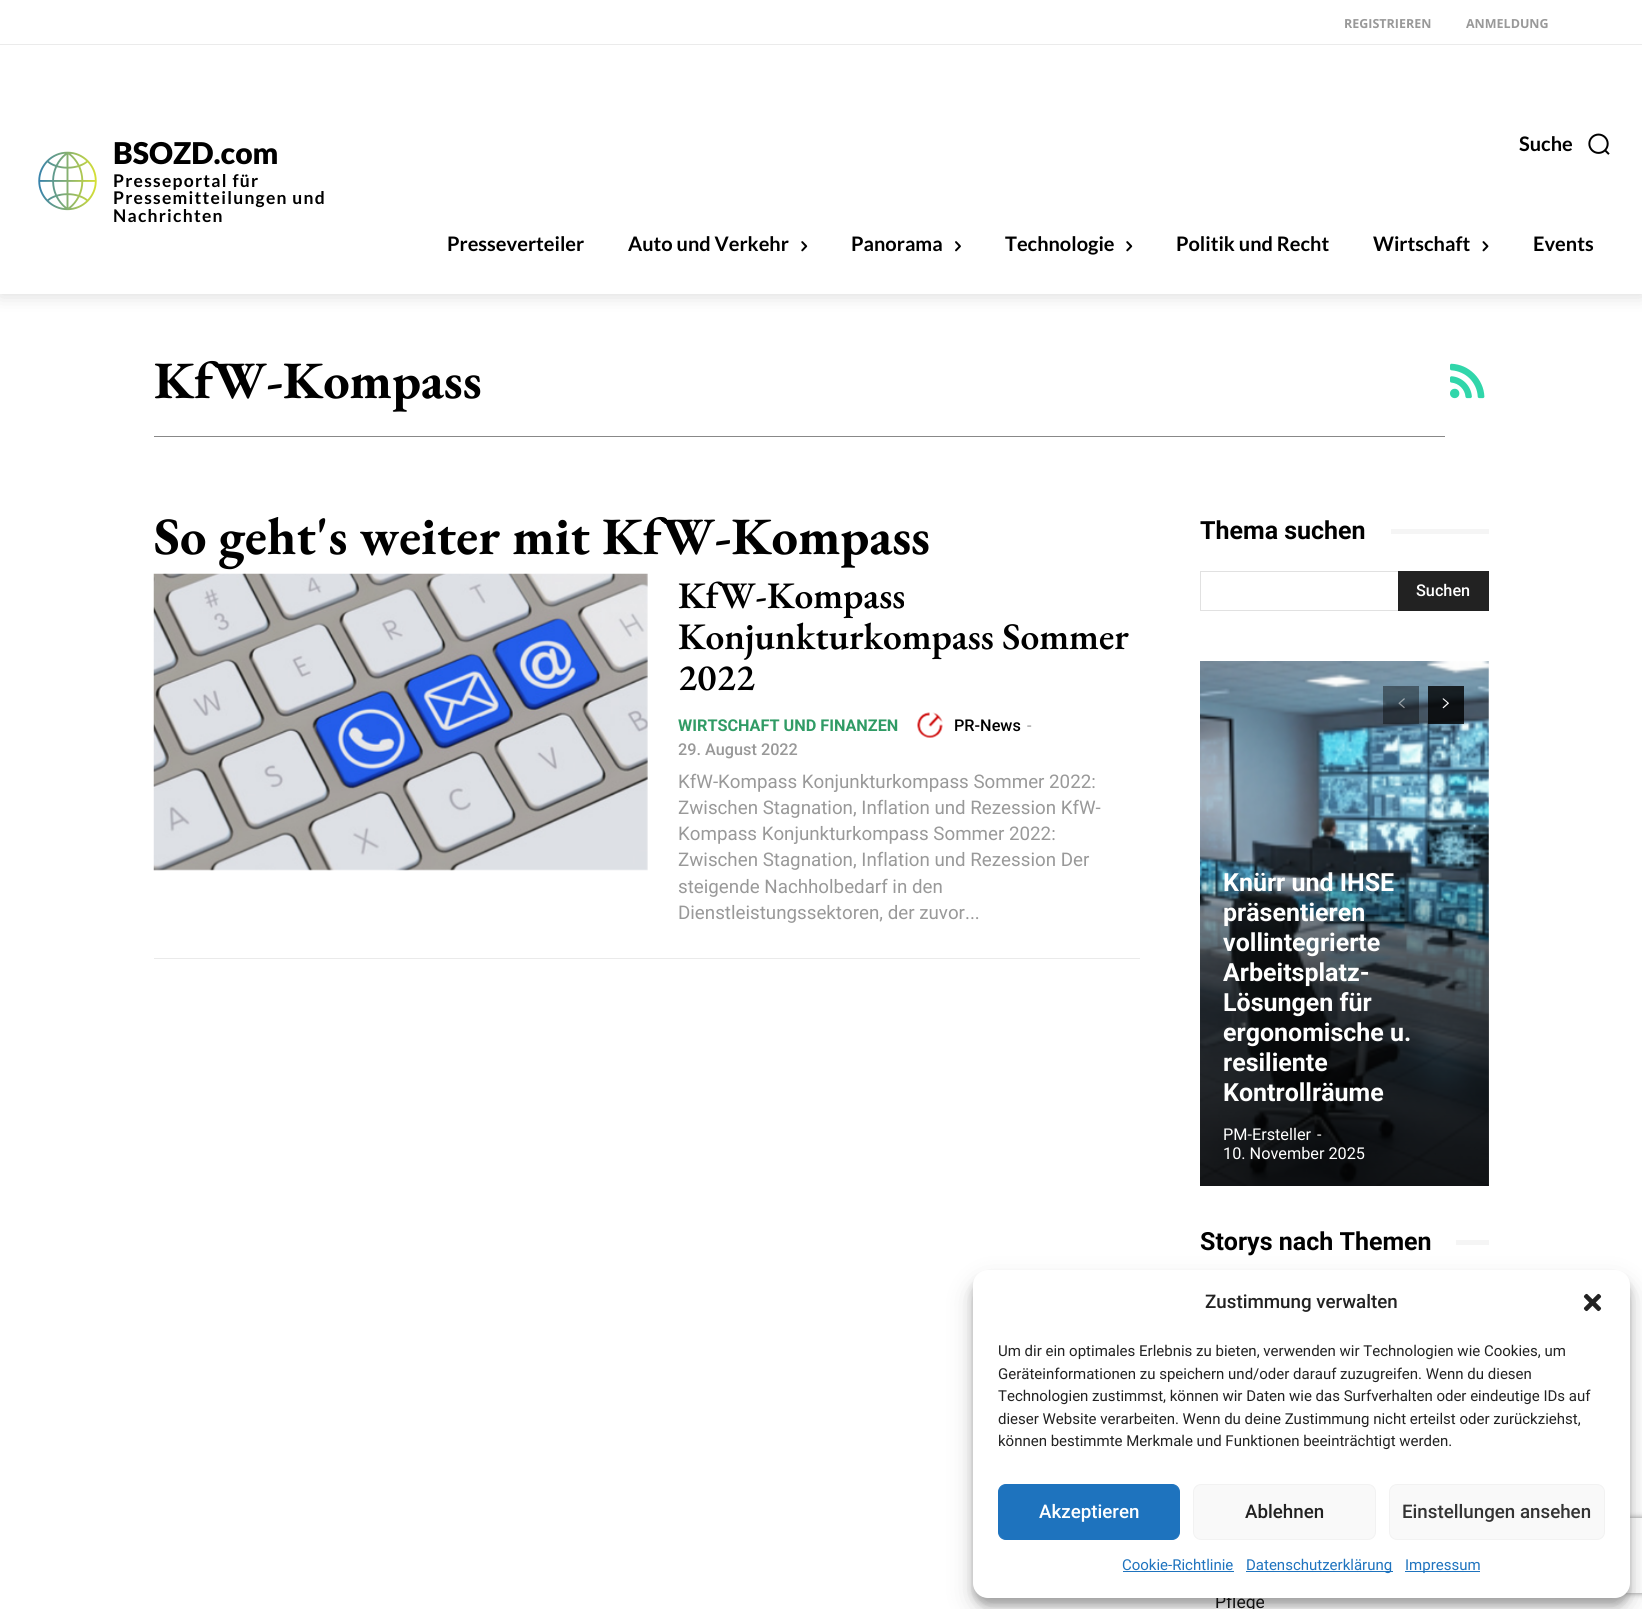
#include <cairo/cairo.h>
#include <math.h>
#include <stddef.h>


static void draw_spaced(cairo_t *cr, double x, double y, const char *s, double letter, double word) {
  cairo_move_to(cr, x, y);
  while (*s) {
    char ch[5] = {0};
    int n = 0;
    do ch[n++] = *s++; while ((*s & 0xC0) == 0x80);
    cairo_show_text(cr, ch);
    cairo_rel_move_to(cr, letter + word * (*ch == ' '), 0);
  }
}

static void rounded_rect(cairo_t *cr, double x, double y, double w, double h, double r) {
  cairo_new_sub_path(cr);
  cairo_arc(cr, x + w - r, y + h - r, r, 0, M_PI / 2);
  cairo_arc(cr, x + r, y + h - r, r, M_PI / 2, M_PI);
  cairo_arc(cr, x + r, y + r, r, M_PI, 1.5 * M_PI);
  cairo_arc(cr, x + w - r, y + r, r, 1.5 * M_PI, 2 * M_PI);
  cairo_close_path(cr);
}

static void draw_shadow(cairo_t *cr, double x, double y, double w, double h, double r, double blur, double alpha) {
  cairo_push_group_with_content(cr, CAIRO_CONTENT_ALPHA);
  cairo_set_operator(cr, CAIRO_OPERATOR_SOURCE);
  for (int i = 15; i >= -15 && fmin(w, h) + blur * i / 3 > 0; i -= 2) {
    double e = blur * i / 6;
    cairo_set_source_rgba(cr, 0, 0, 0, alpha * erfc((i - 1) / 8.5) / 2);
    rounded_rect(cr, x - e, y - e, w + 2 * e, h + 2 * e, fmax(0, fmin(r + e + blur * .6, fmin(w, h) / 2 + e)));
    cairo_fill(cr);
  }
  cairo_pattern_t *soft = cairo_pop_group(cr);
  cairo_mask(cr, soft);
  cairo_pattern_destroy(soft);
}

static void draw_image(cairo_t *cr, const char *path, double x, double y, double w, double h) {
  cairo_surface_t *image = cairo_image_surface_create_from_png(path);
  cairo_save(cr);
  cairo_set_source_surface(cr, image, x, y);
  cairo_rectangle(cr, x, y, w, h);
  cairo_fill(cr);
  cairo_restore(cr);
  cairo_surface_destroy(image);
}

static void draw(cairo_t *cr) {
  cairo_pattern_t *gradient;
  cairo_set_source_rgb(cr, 1, 1, 1);
  cairo_paint(cr);
  cairo_set_source_rgb(cr, 0, 0, 0);
  draw_shadow(cr, 0, 0, 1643, 294, 0, 10, 0.16);
  cairo_set_source_rgb(cr, 1, 1, 1);
  cairo_rectangle(cr, 0, 0, 1642, 294);
  cairo_fill(cr);
  cairo_set_source_rgb(cr, 235 / 255.0, 235 / 255.0, 235 / 255.0);
  cairo_rectangle(cr, 0, 44, 1642, 1);
  cairo_fill(cr);
  draw_image(cr, "images/1.png", 38, 151, 59, 60);
  draw_image(cr, "images/2.png", 1588, 133, 22, 22);
  draw_image(cr, "images/3.png", 801, 241, 7, 11);
  draw_image(cr, "images/4.png", 955, 241, 6, 11);
  draw_image(cr, "images/3.png", 1126, 241, 7, 11);
  draw_image(cr, "images/5.png", 1482, 241, 7, 11);
  cairo_set_source_rgb(cr, 136 / 255.0, 136 / 255.0, 136 / 255.0);
  cairo_rectangle(cr, 154, 436, 1291, 1);
  cairo_fill(cr);
  draw_image(cr, "images/6.png", 1450, 363, 35, 36);
  cairo_set_source_rgb(cr, 234 / 255.0, 234 / 255.0, 234 / 255.0);
  cairo_rectangle(cr, 154, 958, 986, 1);
  cairo_fill(cr);
  draw_image(cr, "images/7.png", 153, 573, 495, 298);
  draw_image(cr, "images/8.png", 917, 712, 26, 26);
  cairo_set_source_rgb(cr, 245 / 255.0, 245 / 255.0, 245 / 255.0);
  cairo_rectangle(cr, 1391, 529, 98, 5);
  cairo_fill(cr);
  cairo_rectangle(cr, 1200.5, 571.5, 288, 39);
  cairo_set_source_rgb(cr, 225 / 255.0, 225 / 255.0, 225 / 255.0);
  cairo_set_line_width(cr, 1);
  cairo_stroke(cr);
  cairo_set_source_rgb(cr, 34 / 255.0, 34 / 255.0, 34 / 255.0);
  cairo_rectangle(cr, 1398, 571, 91, 40);
  cairo_fill(cr);
  draw_image(cr, "images/11.png", 1200, 661, 289, 525);
  cairo_set_source_rgba(cr, 0, 0, 0, 0.4);
  cairo_rectangle(cr, 1383, 686, 36, 38);
  cairo_fill(cr);
  draw_image(cr, "images/9.png", 1398, 698, 7, 11);
  cairo_set_source_rgba(cr, 0, 0, 0, 0.8);
  cairo_rectangle(cr, 1428, 686, 36, 38);
  cairo_fill(cr);
  draw_image(cr, "images/10.png", 1442, 698, 7, 11);
  gradient = cairo_pattern_create_linear(1344, 1186, 1344, 661);
  cairo_pattern_add_color_stop_rgba(gradient, 0, 0, 0, 0, 0.8);
  cairo_pattern_add_color_stop_rgba(gradient, 0.42, 0, 0, 0, 0.5);
  cairo_pattern_add_color_stop_rgba(gradient, 0.61, 0, 0, 0, 0);
  cairo_pattern_add_color_stop_rgba(gradient, 1, 0, 0, 0, 0);
  cairo_set_source(cr, gradient);
  cairo_pattern_destroy(gradient);
  cairo_rectangle(cr, 1200, 870, 289, 316);
  cairo_fill(cr);
  cairo_set_source_rgb(cr, 245 / 255.0, 245 / 255.0, 245 / 255.0);
  cairo_rectangle(cr, 1456, 1240, 33, 5);
  cairo_fill(cr);
  cairo_set_source_rgb(cr, 0, 0, 0);
  draw_shadow(cr, 973, 1278, 657, 327, 15, 4, 0.23);
  draw_shadow(cr, 973, 1283, 657, 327, 15, 12.5, 0.19);
  cairo_save(cr);
  cairo_set_fill_rule(cr, CAIRO_FILL_RULE_EVEN_ODD);
  cairo_new_path(cr);
  cairo_move_to(cr, 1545, 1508);
  cairo_line_to(cr, 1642, 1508);
  cairo_line_to(cr, 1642, 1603);
  cairo_line_to(cr, 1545, 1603);
  cairo_close_path(cr);
  cairo_move_to(cr, 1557.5, 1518);
  cairo_line_to(cr, 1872.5, 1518);
  cairo_curve_to(cr, 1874, 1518, 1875, 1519, 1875, 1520.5);
  cairo_line_to(cr, 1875, 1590.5);
  cairo_curve_to(cr, 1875, 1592, 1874, 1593, 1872.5, 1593);
  cairo_line_to(cr, 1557.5, 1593);
  cairo_curve_to(cr, 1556, 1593, 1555, 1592, 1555, 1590.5);
  cairo_line_to(cr, 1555, 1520.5);
  cairo_curve_to(cr, 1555, 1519, 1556, 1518, 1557.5, 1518);
  cairo_close_path(cr);
  cairo_clip(cr);
  cairo_set_source_rgb(cr, 128 / 255.0, 128 / 255.0, 128 / 255.0);
  draw_shadow(cr, 1555, 1518, 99, 75, 2.5, 3, 1);
  cairo_restore(cr);
  cairo_select_font_face(cr, "Open Sans", CAIRO_FONT_SLANT_NORMAL, CAIRO_FONT_WEIGHT_BOLD);
  cairo_set_font_size(cr, 12.5);
  cairo_set_source_rgb(cr, 153 / 255.0, 153 / 255.0, 153 / 255.0);
  cairo_move_to(cr, 1344, 28);
  cairo_show_text(cr, "REGISTRIEREN");
  cairo_move_to(cr, 1466, 28);
  cairo_show_text(cr, "ANMELDUNG");
  cairo_select_font_face(cr, "Lato Black", CAIRO_FONT_SLANT_NORMAL, CAIRO_FONT_WEIGHT_NORMAL);
  cairo_set_font_size(cr, 30);
  cairo_set_source_rgb(cr, 0, 0, 0);
  cairo_move_to(cr, 113, 164);
  cairo_show_text(cr, "BSOZD.com");
  cairo_select_font_face(cr, "Lato", CAIRO_FONT_SLANT_NORMAL, CAIRO_FONT_WEIGHT_BOLD);
  cairo_set_font_size(cr, 17.5);
  draw_spaced(cr, 113, 187, "Presseportal für", 1.25, 0);
  draw_spaced(cr, 113, 204, "Pressemitteilungen und", 1.25, 0);
  draw_spaced(cr, 113, 222, "Nachrichten", 1.25, 0);
  cairo_set_font_size(cr, 20);
  cairo_move_to(cr, 1519, 151);
  cairo_show_text(cr, "Suche");
  cairo_move_to(cr, 447, 251);
  cairo_show_text(cr, "Presseverteiler");
  cairo_move_to(cr, 628, 251);
  cairo_show_text(cr, "Auto und Verkehr");
  cairo_move_to(cr, 851, 251);
  cairo_show_text(cr, "Panorama");
  cairo_move_to(cr, 1005, 251);
  cairo_show_text(cr, "Technologie");
  cairo_move_to(cr, 1176, 251);
  cairo_show_text(cr, "Politik und Recht");
  cairo_move_to(cr, 1373, 251);
  cairo_show_text(cr, "Wirtschaft");
  cairo_move_to(cr, 1533, 251);
  cairo_show_text(cr, "Events");
  cairo_select_font_face(cr, "EB Garamond", CAIRO_FONT_SLANT_NORMAL, CAIRO_FONT_WEIGHT_BOLD);
  cairo_set_font_size(cr, 52.5);
  cairo_move_to(cr, 154, 398);
  cairo_show_text(cr, "KfW-Kompass");
  cairo_move_to(cr, 154, 554);
  cairo_show_text(cr, "So geht's weiter mit KfW-Kompass");
  cairo_select_font_face(cr, "EB Garamond SemiBold", CAIRO_FONT_SLANT_NORMAL, CAIRO_FONT_WEIGHT_NORMAL);
  cairo_set_font_size(cr, 37.5);
  cairo_move_to(cr, 678, 608);
  cairo_show_text(cr, "KfW-Kompass");
  cairo_move_to(cr, 678, 649);
  cairo_show_text(cr, "Konjunkturkompass Sommer");
  cairo_move_to(cr, 678, 690);
  cairo_show_text(cr, "2022");
  cairo_select_font_face(cr, "Roboto", CAIRO_FONT_SLANT_NORMAL, CAIRO_FONT_WEIGHT_BOLD);
  cairo_set_font_size(cr, 16.25);
  cairo_set_source_rgb(cr, 48 / 255.0, 155 / 255.0, 101 / 255.0);
  cairo_move_to(cr, 678, 731);
  cairo_show_text(cr, "WIRTSCHAFT UND FINANZEN");
  cairo_select_font_face(cr, "Roboto Medium", CAIRO_FONT_SLANT_NORMAL, CAIRO_FONT_WEIGHT_NORMAL);
  cairo_set_source_rgb(cr, 0, 0, 0);
  cairo_move_to(cr, 954, 731);
  cairo_show_text(cr, "PR-News");
  cairo_select_font_face(cr, "Roboto", CAIRO_FONT_SLANT_NORMAL, CAIRO_FONT_WEIGHT_NORMAL);
  cairo_set_source_rgb(cr, 153 / 255.0, 153 / 255.0, 153 / 255.0);
  cairo_move_to(cr, 1027, 731);
  cairo_show_text(cr, "-");
  cairo_select_font_face(cr, "Roboto Medium", CAIRO_FONT_SLANT_NORMAL, CAIRO_FONT_WEIGHT_NORMAL);
  cairo_move_to(cr, 678, 755);
  cairo_show_text(cr, "29. August 2022");
  cairo_select_font_face(cr, "Roboto", CAIRO_FONT_SLANT_NORMAL, CAIRO_FONT_WEIGHT_NORMAL);
  cairo_set_font_size(cr, 18.75);
  cairo_move_to(cr, 678, 788);
  cairo_show_text(cr, "KfW-Kompass Konjunkturkompass Sommer 2022:");
  cairo_move_to(cr, 678, 814);
  cairo_show_text(cr, "Zwischen Stagnation, Inflation und Rezession KfW-");
  cairo_move_to(cr, 678, 840);
  cairo_show_text(cr, "Kompass Konjunkturkompass Sommer 2022:");
  cairo_move_to(cr, 678, 866);
  cairo_show_text(cr, "Zwischen Stagnation, Inflation und Rezession Der");
  cairo_move_to(cr, 678, 893);
  cairo_show_text(cr, "steigende Nachholbedarf in den");
  cairo_move_to(cr, 678, 919);
  cairo_show_text(cr, "Dienstleistungssektoren, der zuvor...");
  cairo_select_font_face(cr, "Roboto", CAIRO_FONT_SLANT_NORMAL, CAIRO_FONT_WEIGHT_BOLD);
  cairo_set_font_size(cr, 25);
  cairo_set_source_rgb(cr, 0, 0, 0);
  cairo_move_to(cr, 1200, 539);
  cairo_show_text(cr, "Thema suchen");
  cairo_select_font_face(cr, "Roboto Medium", CAIRO_FONT_SLANT_NORMAL, CAIRO_FONT_WEIGHT_NORMAL);
  cairo_set_font_size(cr, 16.25);
  cairo_set_source_rgb(cr, 1, 1, 1);
  cairo_move_to(cr, 1416, 596);
  cairo_show_text(cr, "Suchen");
  cairo_select_font_face(cr, "Roboto", CAIRO_FONT_SLANT_NORMAL, CAIRO_FONT_WEIGHT_BOLD);
  cairo_set_font_size(cr, 25);
  cairo_move_to(cr, 1223, 891);
  cairo_show_text(cr, "Knürr und IHSE");
  cairo_move_to(cr, 1223, 921);
  cairo_show_text(cr, "präsentieren");
  cairo_move_to(cr, 1223, 951);
  cairo_show_text(cr, "vollintegrierte");
  cairo_move_to(cr, 1223, 981);
  cairo_show_text(cr, "Arbeitsplatz-");
  cairo_move_to(cr, 1223, 1011);
  cairo_show_text(cr, "Lösungen für");
  cairo_move_to(cr, 1223, 1041);
  cairo_show_text(cr, "ergonomische u.");
  cairo_move_to(cr, 1223, 1071);
  cairo_show_text(cr, "resiliente");
  cairo_move_to(cr, 1223, 1101);
  cairo_show_text(cr, "Kontrollräume");
  cairo_select_font_face(cr, "Roboto", CAIRO_FONT_SLANT_NORMAL, CAIRO_FONT_WEIGHT_NORMAL);
  cairo_set_font_size(cr, 16.25);
  cairo_move_to(cr, 1223, 1140);
  cairo_show_text(cr, "PM-Ersteller");
  cairo_move_to(cr, 1317, 1140);
  cairo_show_text(cr, "-");
  cairo_move_to(cr, 1223, 1159);
  cairo_show_text(cr, "10. November 2025");
  cairo_select_font_face(cr, "Roboto", CAIRO_FONT_SLANT_NORMAL, CAIRO_FONT_WEIGHT_BOLD);
  cairo_set_font_size(cr, 25);
  cairo_set_source_rgb(cr, 0, 0, 0);
  cairo_move_to(cr, 1200, 1250);
  cairo_show_text(cr, "Storys nach Themen");
  cairo_select_font_face(cr, "Roboto", CAIRO_FONT_SLANT_NORMAL, CAIRO_FONT_WEIGHT_NORMAL);
  cairo_set_font_size(cr, 17.5);
  cairo_set_source_rgb(cr, 17 / 255.0, 17 / 255.0, 17 / 255.0);
  cairo_move_to(cr, 1215, 1608);
  cairo_show_text(cr, "Pflege");
  cairo_set_source_rgb(cr, 1, 1, 1);
  rounded_rect(cr, 973, 1270, 657, 328, 15);
  cairo_fill(cr);
  cairo_select_font_face(cr, "Roboto Medium", CAIRO_FONT_SLANT_NORMAL, CAIRO_FONT_WEIGHT_NORMAL);
  cairo_set_font_size(cr, 18.75);
  cairo_set_source_rgb(cr, 34 / 255.0, 34 / 255.0, 34 / 255.0);
  cairo_move_to(cr, 1205, 1308);
  cairo_show_text(cr, "Zustimmung verwalten");
  draw_image(cr, "images/12.png", 1583, 1293, 19, 19);
  cairo_select_font_face(cr, "Roboto", CAIRO_FONT_SLANT_NORMAL, CAIRO_FONT_WEIGHT_NORMAL);
  cairo_set_font_size(cr, 15);
  cairo_move_to(cr, 998, 1356);
  cairo_show_text(cr, "Um dir ein optimales Erlebnis zu bieten, verwenden wir Technologien wie Cookies, um");
  cairo_move_to(cr, 998, 1379);
  cairo_show_text(cr, "Geräteinformationen zu speichern und/oder darauf zuzugreifen. Wenn du diesen");
  cairo_move_to(cr, 998, 1401);
  cairo_show_text(cr, "Technologien zustimmst, können wir Daten wie das Surfverhalten oder eindeutige IDs auf");
  cairo_move_to(cr, 998, 1424);
  cairo_show_text(cr, "dieser Website verarbeiten. Wenn du deine Zustimmung nicht erteilst oder zurückziehst,");
  cairo_move_to(cr, 998, 1446);
  cairo_show_text(cr, "können bestimmte Merkmale und Funktionen beeinträchtigt werden.");
  cairo_set_source_rgb(cr, 30 / 255.0, 115 / 255.0, 190 / 255.0);
  rounded_rect(cr, 998.5, 1484.5, 181, 55, 7.5);
  cairo_fill_preserve(cr);
  cairo_stroke(cr);
  cairo_select_font_face(cr, "Roboto Medium", CAIRO_FONT_SLANT_NORMAL, CAIRO_FONT_WEIGHT_NORMAL);
  cairo_set_font_size(cr, 18.75);
  cairo_set_source_rgb(cr, 1, 1, 1);
  cairo_move_to(cr, 1039, 1518);
  cairo_show_text(cr, "Akzeptieren");
  cairo_set_source_rgb(cr, 249 / 255.0, 249 / 255.0, 249 / 255.0);
  rounded_rect(cr, 1193.5, 1484.5, 182, 55, 7.5);
  cairo_fill_preserve(cr);
  cairo_set_source_rgb(cr, 242 / 255.0, 242 / 255.0, 242 / 255.0);
  cairo_stroke(cr);
  cairo_set_source_rgb(cr, 34 / 255.0, 34 / 255.0, 34 / 255.0);
  cairo_move_to(cr, 1245, 1518);
  cairo_show_text(cr, "Ablehnen");
  cairo_set_source_rgb(cr, 249 / 255.0, 249 / 255.0, 249 / 255.0);
  rounded_rect(cr, 1389.5, 1484.5, 215, 55, 7.5);
  cairo_fill_preserve(cr);
  cairo_set_source_rgb(cr, 242 / 255.0, 242 / 255.0, 242 / 255.0);
  cairo_stroke(cr);
  cairo_set_source_rgb(cr, 51 / 255.0, 51 / 255.0, 51 / 255.0);
  cairo_move_to(cr, 1402, 1518);
  cairo_show_text(cr, "Einstellungen ansehen");
  cairo_select_font_face(cr, "Roboto", CAIRO_FONT_SLANT_NORMAL, CAIRO_FONT_WEIGHT_NORMAL);
  cairo_set_font_size(cr, 15);
  cairo_set_source_rgb(cr, 30 / 255.0, 115 / 255.0, 190 / 255.0);
  cairo_move_to(cr, 1122, 1570);
  cairo_show_text(cr, "Cookie-Richtlinie");
  cairo_rectangle(cr, 1123, 1571, 111, 1);
  cairo_fill(cr);
  cairo_rectangle(cr, 1246, 1571, 147, 1);
  cairo_fill(cr);
  cairo_move_to(cr, 1246, 1570);
  cairo_show_text(cr, "Datenschutzerklärung");
  cairo_rectangle(cr, 1405, 1571, 75, 1);
  cairo_fill(cr);
  cairo_move_to(cr, 1405, 1570);
  cairo_show_text(cr, "Impressum");
}

int main(void) {
  cairo_surface_t *surface = cairo_image_surface_create(CAIRO_FORMAT_RGB24, 1642, 1609);
  cairo_t *cr = cairo_create(surface);
  cairo_font_options_t *options = cairo_font_options_create();
  cairo_font_options_set_hint_metrics(options, CAIRO_HINT_METRICS_OFF);
  cairo_font_options_set_hint_style(options, CAIRO_HINT_STYLE_NONE);
  cairo_set_font_options(cr, options);
  cairo_set_miter_limit(cr, 4);
  draw(cr);
  cairo_surface_write_to_png(surface, "out.png");
  cairo_font_options_destroy(options);
  cairo_destroy(cr);
  cairo_surface_destroy(surface);
  return 0;
}
